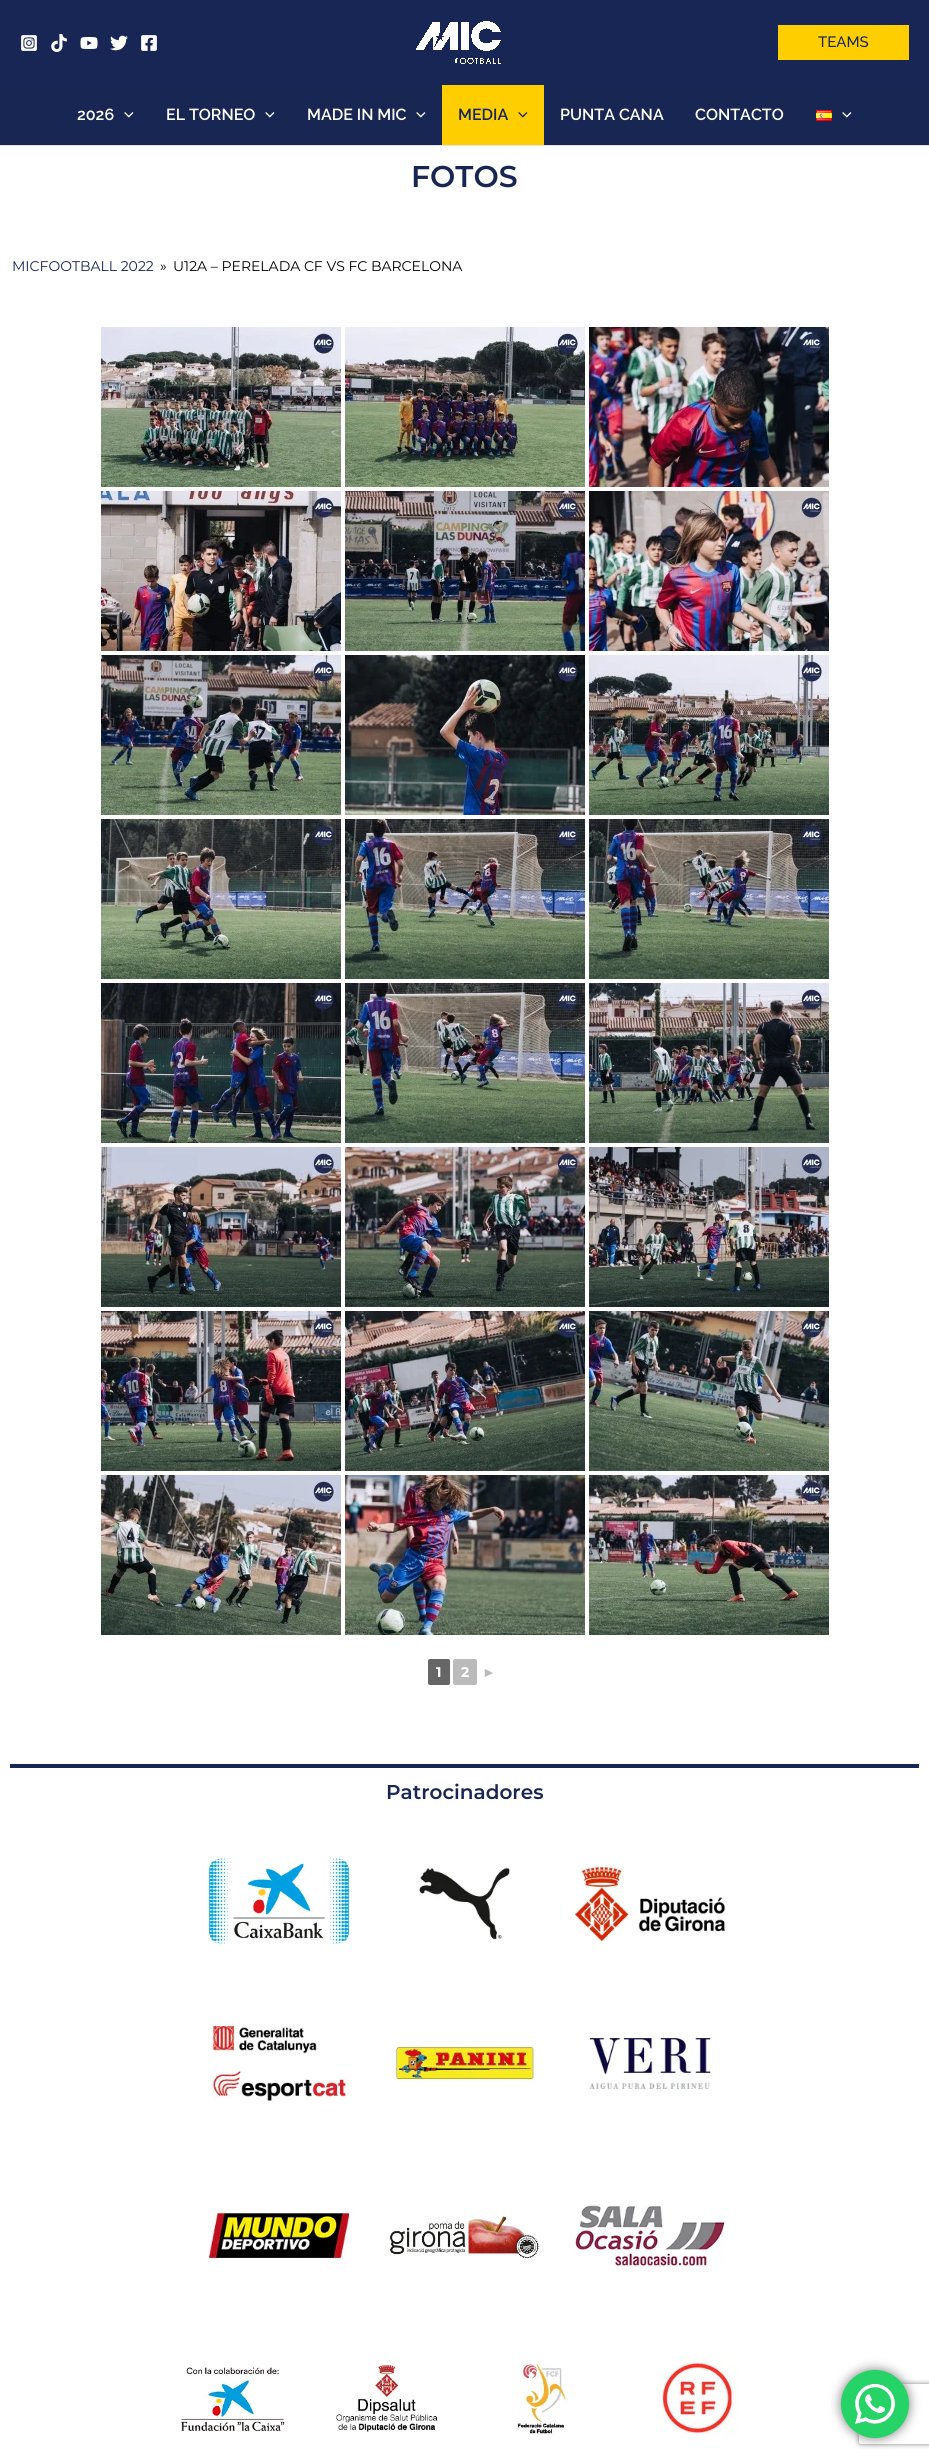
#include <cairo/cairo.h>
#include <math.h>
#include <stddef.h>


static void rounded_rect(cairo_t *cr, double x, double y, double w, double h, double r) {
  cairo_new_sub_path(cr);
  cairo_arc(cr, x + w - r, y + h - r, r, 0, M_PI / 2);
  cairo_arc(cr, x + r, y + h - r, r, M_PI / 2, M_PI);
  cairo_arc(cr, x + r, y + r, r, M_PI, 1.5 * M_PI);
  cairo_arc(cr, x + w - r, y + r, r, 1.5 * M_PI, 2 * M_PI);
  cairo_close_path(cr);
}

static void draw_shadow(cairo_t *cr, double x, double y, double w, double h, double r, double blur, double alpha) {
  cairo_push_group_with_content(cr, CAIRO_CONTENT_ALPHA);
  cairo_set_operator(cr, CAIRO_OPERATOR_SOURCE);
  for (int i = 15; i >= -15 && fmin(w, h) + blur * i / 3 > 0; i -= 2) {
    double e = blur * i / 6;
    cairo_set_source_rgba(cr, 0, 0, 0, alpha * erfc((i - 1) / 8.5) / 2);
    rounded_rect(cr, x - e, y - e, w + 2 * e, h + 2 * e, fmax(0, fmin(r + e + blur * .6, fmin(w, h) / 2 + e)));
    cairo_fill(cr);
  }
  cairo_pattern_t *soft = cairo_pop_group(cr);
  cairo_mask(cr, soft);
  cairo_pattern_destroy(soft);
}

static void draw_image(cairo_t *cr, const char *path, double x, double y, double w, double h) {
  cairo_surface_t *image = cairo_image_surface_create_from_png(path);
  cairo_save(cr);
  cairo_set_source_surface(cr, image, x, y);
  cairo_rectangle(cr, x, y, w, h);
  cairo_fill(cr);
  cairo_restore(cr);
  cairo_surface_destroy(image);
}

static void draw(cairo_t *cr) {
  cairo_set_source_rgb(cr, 1, 1, 1);
  cairo_paint(cr);
  cairo_set_source_rgb(cr, 23 / 255.0, 38 / 255.0, 84 / 255.0);
  cairo_rectangle(cr, 0, 0, 929, 85);
  cairo_fill(cr);
  draw_image(cr, "images/1.png", 21, 35, 16, 16);
  draw_image(cr, "images/2.png", 51, 34, 16, 18);
  draw_image(cr, "images/3.png", 80, 37, 18, 12);
  draw_image(cr, "images/4.png", 110, 35, 18, 16);
  draw_image(cr, "images/5.png", 141, 35, 16, 16);
  draw_image(cr, "images/6.png", 416, 21, 85, 43);
  cairo_set_source_rgb(cr, 1, 206 / 255.0, 0);
  cairo_rectangle(cr, 778, 25, 131, 35);
  cairo_fill(cr);
  cairo_set_source_rgb(cr, 24 / 255.0, 38 / 255.0, 84 / 255.0);
  cairo_rectangle(cr, 0, 85, 929, 60);
  cairo_fill(cr);
  cairo_set_source_rgb(cr, 229 / 255.0, 229 / 255.0, 229 / 255.0);
  cairo_rectangle(cr, 0, 145, 929, 1);
  cairo_fill(cr);
  draw_image(cr, "images/7.png", 124, 112, 10, 6);
  draw_image(cr, "images/7.png", 265, 112, 10, 6);
  draw_image(cr, "images/7.png", 416, 112, 10, 6);
  cairo_set_source_rgb(cr, 1, 206 / 255.0, 0);
  cairo_rectangle(cr, 442, 85, 102, 60);
  cairo_fill(cr);
  draw_image(cr, "images/8.png", 518, 112, 10, 6);
  draw_image(cr, "images/9.png", 816, 110, 16, 11);
  draw_image(cr, "images/7.png", 842, 112, 10, 6);
  draw_image(cr, "images/10.png", 101, 327, 240, 160);
  draw_image(cr, "images/11.png", 345, 327, 240, 160);
  draw_image(cr, "images/12.png", 589, 327, 240, 160);
  draw_image(cr, "images/13.png", 101, 491, 240, 160);
  draw_image(cr, "images/14.png", 345, 491, 240, 160);
  draw_image(cr, "images/15.png", 589, 491, 240, 160);
  draw_image(cr, "images/16.png", 101, 655, 240, 160);
  draw_image(cr, "images/17.png", 345, 655, 240, 160);
  draw_image(cr, "images/18.png", 589, 655, 240, 160);
  draw_image(cr, "images/19.png", 101, 819, 240, 160);
  draw_image(cr, "images/20.png", 345, 819, 240, 160);
  draw_image(cr, "images/21.png", 589, 819, 240, 160);
  draw_image(cr, "images/22.png", 101, 983, 240, 160);
  draw_image(cr, "images/23.png", 345, 983, 240, 160);
  draw_image(cr, "images/24.png", 589, 983, 240, 160);
  draw_image(cr, "images/25.png", 101, 1147, 240, 160);
  draw_image(cr, "images/26.png", 345, 1147, 240, 160);
  draw_image(cr, "images/27.png", 589, 1147, 240, 160);
  draw_image(cr, "images/28.png", 101, 1311, 240, 160);
  draw_image(cr, "images/29.png", 345, 1311, 240, 160);
  draw_image(cr, "images/30.png", 589, 1311, 240, 160);
  draw_image(cr, "images/31.png", 101, 1475, 240, 160);
  draw_image(cr, "images/32.png", 345, 1475, 240, 160);
  draw_image(cr, "images/33.png", 589, 1475, 240, 160);
  cairo_set_source_rgb(cr, 102 / 255.0, 102 / 255.0, 102 / 255.0);
  rounded_rect(cr, 428, 1659, 22, 26, 2);
  cairo_fill(cr);
  cairo_set_source_rgb(cr, 187 / 255.0, 187 / 255.0, 187 / 255.0);
  rounded_rect(cr, 453, 1659, 24, 26, 2);
  cairo_fill(cr);
  cairo_set_source_rgb(cr, 24 / 255.0, 38 / 255.0, 84 / 255.0);
  cairo_rectangle(cr, 10, 1764, 909, 4);
  cairo_fill(cr);
  draw_image(cr, "images/34.png", 209, 1858, 141, 86);
  draw_image(cr, "images/35.png", 418, 1866, 92, 74);
  draw_image(cr, "images/36.png", 573, 1865, 152, 77);
  draw_image(cr, "images/37.png", 208, 2025, 141, 76);
  draw_image(cr, "images/38.png", 394, 2044, 140, 37);
  draw_image(cr, "images/39.png", 589, 2038, 124, 52);
  draw_image(cr, "images/40.png", 208, 2210, 146, 49);
  draw_image(cr, "images/41.png", 390, 2215, 149, 44);
  draw_image(cr, "images/42.png", 573, 2204, 152, 67);
  draw_image(cr, "images/43.png", 181, 2367, 104, 65);
  draw_image(cr, "images/44.png", 336, 2363, 102, 69);
  draw_image(cr, "images/45.png", 518, 2363, 50, 72);
  draw_image(cr, "images/46.png", 657, 2358, 80, 80);
  cairo_set_source_rgb(cr, 0, 0, 0);
  draw_shadow(cr, 841, 2370, 68, 68, 34, 5.5, 0.5);
  cairo_save(cr);
  cairo_set_fill_rule(cr, CAIRO_FILL_RULE_EVEN_ODD);
  cairo_new_path(cr);
  cairo_move_to(cr, 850, 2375);
  cairo_line_to(cr, 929, 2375);
  cairo_line_to(cr, 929, 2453);
  cairo_line_to(cr, 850, 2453);
  cairo_close_path(cr);
  cairo_move_to(cr, 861, 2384);
  cairo_line_to(cr, 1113, 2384);
  cairo_curve_to(cr, 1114, 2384, 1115, 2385, 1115, 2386);
  cairo_line_to(cr, 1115, 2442);
  cairo_curve_to(cr, 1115, 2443, 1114, 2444, 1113, 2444);
  cairo_line_to(cr, 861, 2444);
  cairo_curve_to(cr, 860, 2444, 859, 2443, 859, 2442);
  cairo_line_to(cr, 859, 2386);
  cairo_curve_to(cr, 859, 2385, 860, 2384, 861, 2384);
  cairo_close_path(cr);
  cairo_clip(cr);
  cairo_set_source_rgb(cr, 128 / 255.0, 128 / 255.0, 128 / 255.0);
  draw_shadow(cr, 859, 2384, 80, 60, 2, 2.5, 1);
  cairo_restore(cr);
  cairo_set_source_rgb(cr, 37 / 255.0, 211 / 255.0, 102 / 255.0);
  cairo_arc(cr, 875, 2404, 34, 0, 2 * M_PI);
  cairo_fill(cr);
  draw_image(cr, "images/47.png", 855, 2384, 40, 40);
  cairo_select_font_face(cr, "Raleway Medium", CAIRO_FONT_SLANT_NORMAL, CAIRO_FONT_WEIGHT_NORMAL);
  cairo_set_font_size(cr, 15);
  cairo_set_source_rgb(cr, 24 / 255.0, 38 / 255.0, 84 / 255.0);
  cairo_move_to(cr, 818, 47);
  cairo_show_text(cr, "TEAMS");
  cairo_select_font_face(cr, "Raleway SemiBold", CAIRO_FONT_SLANT_NORMAL, CAIRO_FONT_WEIGHT_NORMAL);
  cairo_set_font_size(cr, 16);
  cairo_set_source_rgb(cr, 1, 1, 1);
  cairo_move_to(cr, 77, 120);
  cairo_show_text(cr, "2026");
  cairo_move_to(cr, 166, 120);
  cairo_show_text(cr, "EL TORNEO");
  cairo_move_to(cr, 307, 120);
  cairo_show_text(cr, "MADE IN MIC");
  cairo_set_source_rgb(cr, 24 / 255.0, 38 / 255.0, 84 / 255.0);
  cairo_move_to(cr, 458, 120);
  cairo_show_text(cr, "MEDIA");
  cairo_set_source_rgb(cr, 1, 1, 1);
  cairo_move_to(cr, 560, 120);
  cairo_show_text(cr, "PUNTA CANA");
  cairo_move_to(cr, 695, 120);
  cairo_show_text(cr, "CONTACTO");
  cairo_select_font_face(cr, "Montserrat SemiBold", CAIRO_FONT_SLANT_NORMAL, CAIRO_FONT_WEIGHT_NORMAL);
  cairo_set_font_size(cr, 30);
  cairo_set_source_rgb(cr, 24 / 255.0, 38 / 255.0, 84 / 255.0);
  cairo_move_to(cr, 411, 187);
  cairo_show_text(cr, "FOTOS");
  cairo_select_font_face(cr, "Montserrat", CAIRO_FONT_SLANT_NORMAL, CAIRO_FONT_WEIGHT_NORMAL);
  cairo_set_font_size(cr, 14);
  cairo_move_to(cr, 12, 271);
  cairo_show_text(cr, "MICFOOTBALL 2022");
  cairo_set_source_rgb(cr, 0, 0, 0);
  cairo_move_to(cr, 160, 271);
  cairo_show_text(cr, "»");
  cairo_move_to(cr, 173, 271);
  cairo_show_text(cr, "U12A – PERELADA CF VS FC BARCELONA");
  cairo_select_font_face(cr, "Montserrat", CAIRO_FONT_SLANT_NORMAL, CAIRO_FONT_WEIGHT_BOLD);
  cairo_set_source_rgb(cr, 1, 1, 1);
  cairo_move_to(cr, 436, 1677);
  cairo_show_text(cr, "1");
  cairo_move_to(cr, 461, 1677);
  cairo_show_text(cr, "2");
  cairo_select_font_face(cr, "Liberation Sans", CAIRO_FONT_SLANT_NORMAL, CAIRO_FONT_WEIGHT_BOLD);
  cairo_set_source_rgb(cr, 187 / 255.0, 187 / 255.0, 187 / 255.0);
  cairo_move_to(cr, 482, 1677);
  cairo_show_text(cr, "►");
  cairo_select_font_face(cr, "Montserrat SemiBold", CAIRO_FONT_SLANT_NORMAL, CAIRO_FONT_WEIGHT_NORMAL);
  cairo_set_font_size(cr, 20);
  cairo_set_source_rgb(cr, 24 / 255.0, 38 / 255.0, 84 / 255.0);
  cairo_move_to(cr, 386, 1799);
  cairo_show_text(cr, "Patrocinadores");
}

int main(void) {
  cairo_surface_t *surface = cairo_image_surface_create(CAIRO_FORMAT_RGB24, 929, 2458);
  cairo_t *cr = cairo_create(surface);
  cairo_font_options_t *options = cairo_font_options_create();
  cairo_font_options_set_hint_metrics(options, CAIRO_HINT_METRICS_OFF);
  cairo_font_options_set_hint_style(options, CAIRO_HINT_STYLE_NONE);
  cairo_set_font_options(cr, options);
  cairo_set_miter_limit(cr, 4);
  draw(cr);
  cairo_surface_write_to_png(surface, "out.png");
  cairo_font_options_destroy(options);
  cairo_destroy(cr);
  cairo_surface_destroy(surface);
  return 0;
}
